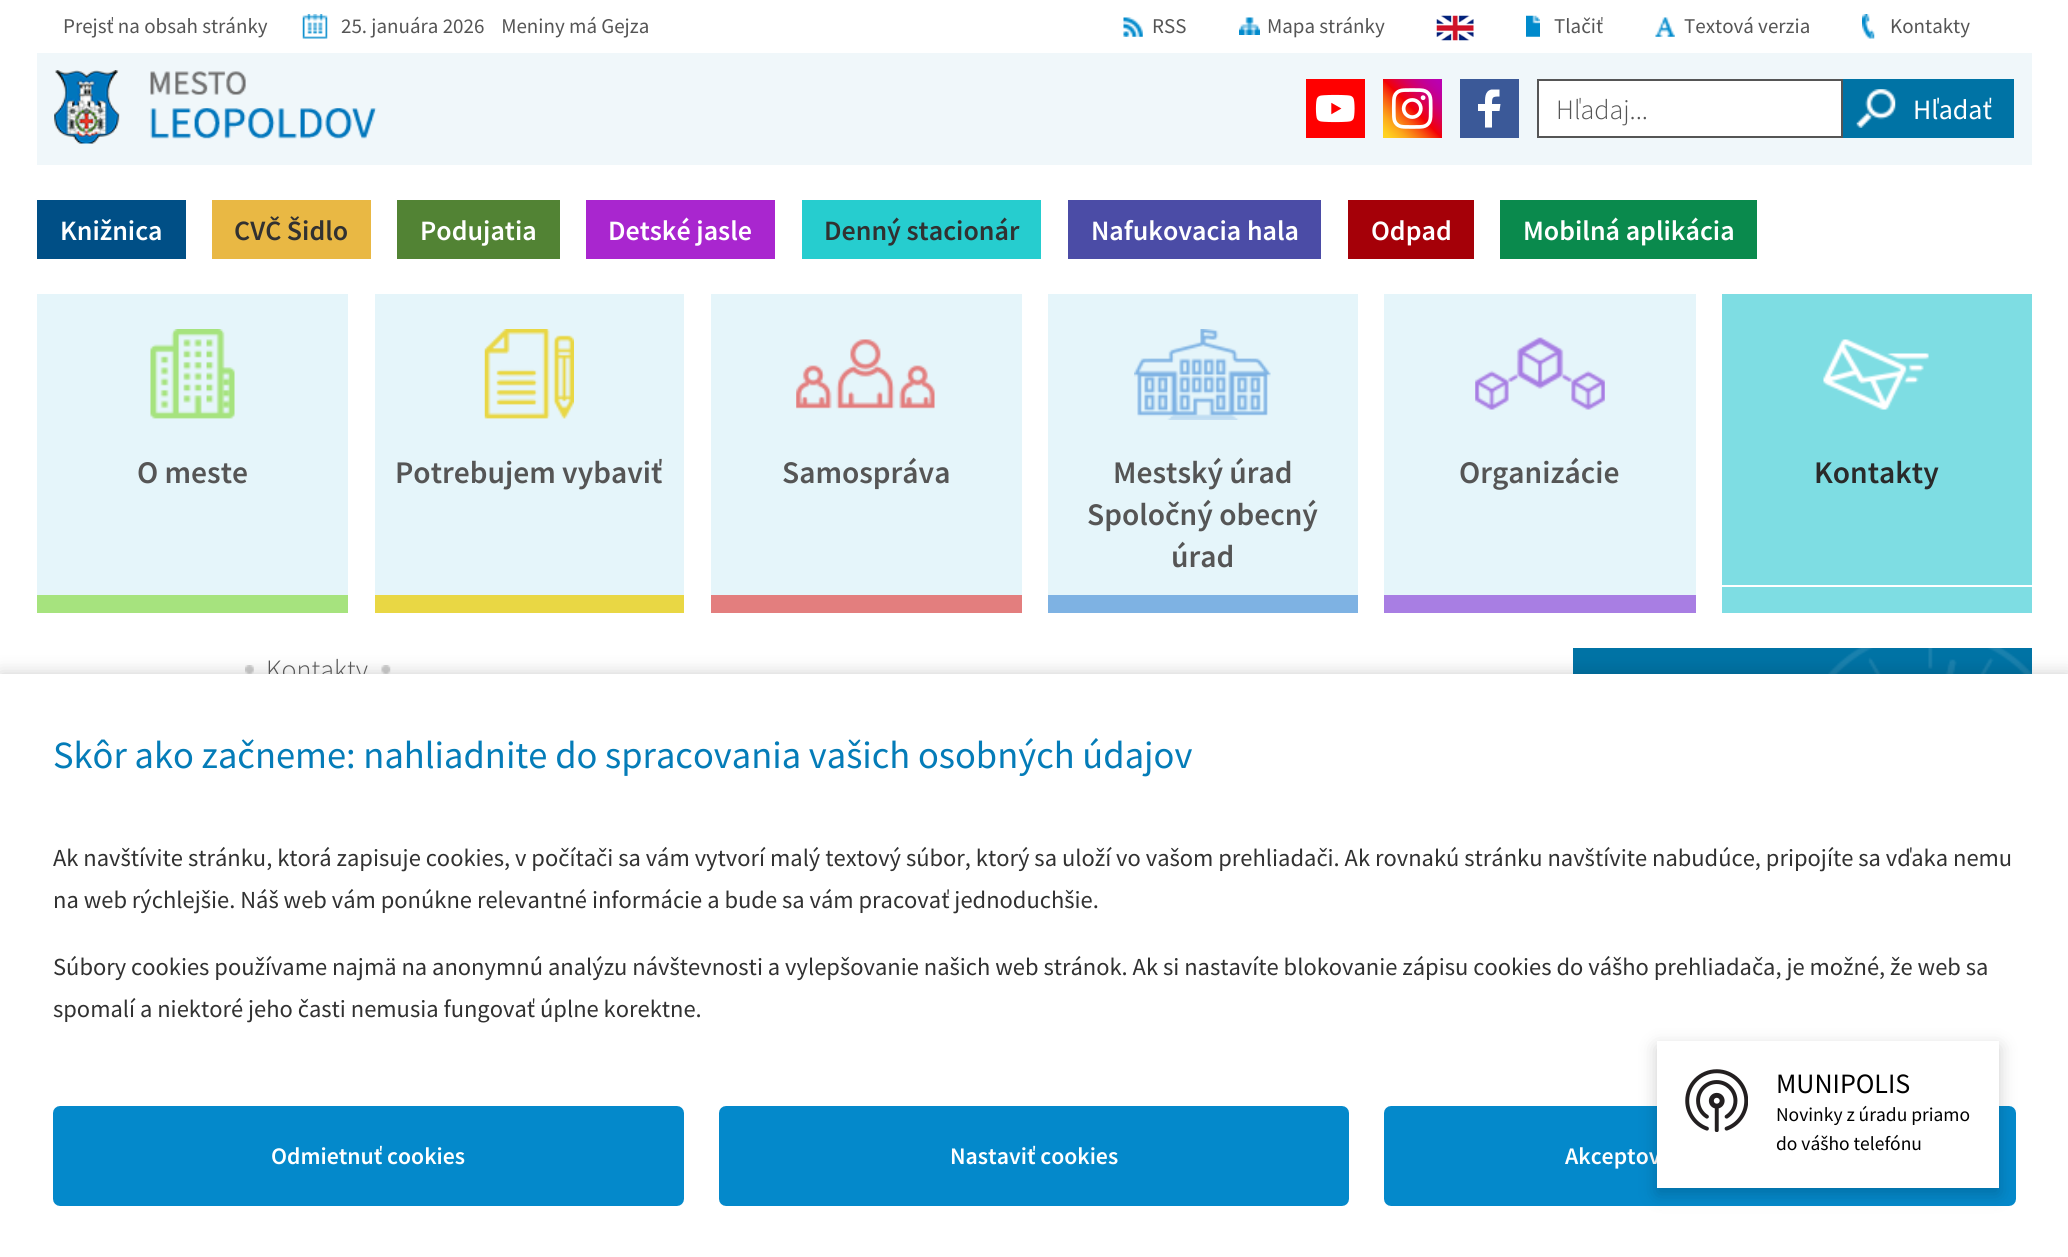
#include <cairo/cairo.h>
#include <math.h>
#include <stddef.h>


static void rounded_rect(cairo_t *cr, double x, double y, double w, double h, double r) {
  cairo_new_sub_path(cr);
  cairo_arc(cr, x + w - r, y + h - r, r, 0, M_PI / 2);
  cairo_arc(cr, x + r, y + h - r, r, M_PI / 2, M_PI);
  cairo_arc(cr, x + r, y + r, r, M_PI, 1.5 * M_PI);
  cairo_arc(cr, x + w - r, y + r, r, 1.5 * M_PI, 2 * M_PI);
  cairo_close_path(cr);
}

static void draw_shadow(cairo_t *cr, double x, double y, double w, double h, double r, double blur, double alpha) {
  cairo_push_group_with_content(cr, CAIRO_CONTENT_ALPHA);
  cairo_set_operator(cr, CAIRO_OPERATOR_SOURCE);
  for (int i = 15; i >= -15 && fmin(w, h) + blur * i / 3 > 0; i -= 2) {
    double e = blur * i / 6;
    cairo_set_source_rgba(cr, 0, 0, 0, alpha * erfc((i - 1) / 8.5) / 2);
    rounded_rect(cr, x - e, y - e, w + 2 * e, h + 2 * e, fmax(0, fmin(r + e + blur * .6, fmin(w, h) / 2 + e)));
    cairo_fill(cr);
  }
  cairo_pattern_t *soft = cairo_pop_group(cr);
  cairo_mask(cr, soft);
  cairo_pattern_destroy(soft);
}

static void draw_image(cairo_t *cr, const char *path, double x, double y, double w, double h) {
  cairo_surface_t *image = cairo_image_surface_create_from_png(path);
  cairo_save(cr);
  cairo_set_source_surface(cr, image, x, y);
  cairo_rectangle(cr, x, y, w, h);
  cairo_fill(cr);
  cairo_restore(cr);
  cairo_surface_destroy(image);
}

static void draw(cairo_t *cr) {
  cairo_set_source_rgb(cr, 1, 1, 1);
  cairo_paint(cr);
  draw_image(cr, "images/1.png", 302, 14, 26, 25);
  draw_image(cr, "images/2.png", 1123, 17, 20, 20);
  draw_image(cr, "images/3.png", 1239, 17, 21, 18);
  draw_image(cr, "images/4.png", 1436, 15, 38, 26);
  draw_image(cr, "images/5.png", 1526, 15, 14, 22);
  draw_image(cr, "images/6.png", 1655, 17, 20, 20);
  draw_image(cr, "images/7.png", 1862, 14, 13, 25);
  cairo_set_source_rgb(cr, 240 / 255.0, 247 / 255.0, 250 / 255.0);
  cairo_rectangle(cr, 37, 53, 1995, 112);
  cairo_fill(cr);
  draw_image(cr, "images/8.png", 54, 70, 323, 74);
  draw_image(cr, "images/9.png", 1306, 79, 59, 59);
  draw_image(cr, "images/10.png", 1383, 79, 59, 59);
  cairo_set_source_rgb(cr, 59 / 255.0, 89 / 255.0, 152 / 255.0);
  cairo_rectangle(cr, 1460, 79, 59, 59);
  cairo_fill(cr);
  cairo_set_source_rgb(cr, 1, 1, 1);
  cairo_new_path(cr);
  cairo_move_to(cr, 1492, 127.5);
  cairo_line_to(cr, 1492, 111);
  cairo_line_to(cr, 1499.5, 111);
  cairo_line_to(cr, 1500.5, 104);
  cairo_line_to(cr, 1492, 104);
  cairo_curve_to(cr, 1492, 97, 1492.5, 96.5, 1499.5, 96.5);
  cairo_line_to(cr, 1499.5, 89.5);
  cairo_line_to(cr, 1491.5, 89.5);
  cairo_curve_to(cr, 1484.5, 91, 1485, 98.5, 1485, 104);
  cairo_line_to(cr, 1478, 104);
  cairo_line_to(cr, 1478, 111);
  cairo_line_to(cr, 1485, 111);
  cairo_line_to(cr, 1485, 127.5);
  cairo_close_path(cr);
  cairo_fill(cr);
  cairo_rectangle(cr, 1538, 80, 304, 57);
  cairo_fill_preserve(cr);
  cairo_set_source_rgb(cr, 85 / 255.0, 85 / 255.0, 85 / 255.0);
  cairo_stroke(cr);
  cairo_set_source_rgb(cr, 0, 115 / 255.0, 165 / 255.0);
  cairo_rectangle(cr, 1843, 79, 171, 59);
  cairo_fill(cr);
  draw_image(cr, "images/11.png", 1856, 89, 40, 39);
  cairo_set_source_rgb(cr, 0, 79 / 255.0, 134 / 255.0);
  cairo_rectangle(cr, 37, 200, 149, 59);
  cairo_fill(cr);
  cairo_set_source_rgb(cr, 233 / 255.0, 184 / 255.0, 68 / 255.0);
  cairo_rectangle(cr, 212, 200, 159, 59);
  cairo_fill(cr);
  cairo_set_source_rgb(cr, 82 / 255.0, 131 / 255.0, 52 / 255.0);
  cairo_rectangle(cr, 397, 200, 163, 59);
  cairo_fill(cr);
  cairo_set_source_rgb(cr, 169 / 255.0, 38 / 255.0, 207 / 255.0);
  cairo_rectangle(cr, 586, 200, 189, 59);
  cairo_fill(cr);
  cairo_set_source_rgb(cr, 38 / 255.0, 205 / 255.0, 207 / 255.0);
  cairo_rectangle(cr, 802, 200, 239, 59);
  cairo_fill(cr);
  cairo_set_source_rgb(cr, 75 / 255.0, 76 / 255.0, 166 / 255.0);
  cairo_rectangle(cr, 1068, 200, 253, 59);
  cairo_fill(cr);
  cairo_set_source_rgb(cr, 165 / 255.0, 0, 8 / 255.0);
  cairo_rectangle(cr, 1348, 200, 126, 59);
  cairo_fill(cr);
  cairo_set_source_rgb(cr, 10 / 255.0, 138 / 255.0, 77 / 255.0);
  cairo_rectangle(cr, 1500, 200, 257, 59);
  cairo_fill(cr);
  cairo_set_source_rgb(cr, 229 / 255.0, 245 / 255.0, 250 / 255.0);
  cairo_rectangle(cr, 37, 294, 311, 301);
  cairo_fill(cr);
  draw_image(cr, "images/12.png", 150, 329, 85, 90);
  cairo_set_source_rgb(cr, 166 / 255.0, 227 / 255.0, 126 / 255.0);
  cairo_rectangle(cr, 37, 595, 311, 18);
  cairo_fill(cr);
  cairo_set_source_rgb(cr, 229 / 255.0, 245 / 255.0, 250 / 255.0);
  cairo_rectangle(cr, 375, 294, 309, 301);
  cairo_fill(cr);
  draw_image(cr, "images/13.png", 484, 329, 90, 90);
  cairo_set_source_rgb(cr, 233 / 255.0, 215 / 255.0, 68 / 255.0);
  cairo_rectangle(cr, 375, 595, 309, 18);
  cairo_fill(cr);
  cairo_set_source_rgb(cr, 229 / 255.0, 245 / 255.0, 250 / 255.0);
  cairo_rectangle(cr, 711, 294, 311, 301);
  cairo_fill(cr);
  draw_image(cr, "images/14.png", 796, 339, 139, 70);
  cairo_set_source_rgb(cr, 227 / 255.0, 126 / 255.0, 126 / 255.0);
  cairo_rectangle(cr, 711, 595, 311, 18);
  cairo_fill(cr);
  cairo_set_source_rgb(cr, 229 / 255.0, 245 / 255.0, 250 / 255.0);
  cairo_rectangle(cr, 1048, 294, 310, 301);
  cairo_fill(cr);
  draw_image(cr, "images/15.png", 1134, 329, 137, 91);
  cairo_set_source_rgb(cr, 126 / 255.0, 178 / 255.0, 227 / 255.0);
  cairo_rectangle(cr, 1048, 595, 310, 18);
  cairo_fill(cr);
  cairo_set_source_rgb(cr, 229 / 255.0, 245 / 255.0, 250 / 255.0);
  cairo_rectangle(cr, 1384, 294, 312, 301);
  cairo_fill(cr);
  draw_image(cr, "images/16.png", 1475, 337, 130, 73);
  cairo_set_source_rgb(cr, 168 / 255.0, 126 / 255.0, 227 / 255.0);
  cairo_rectangle(cr, 1384, 595, 312, 18);
  cairo_fill(cr);
  cairo_set_source_rgb(cr, 126 / 255.0, 221 / 255.0, 227 / 255.0);
  cairo_rectangle(cr, 1722, 294, 310, 319);
  cairo_fill(cr);
  draw_image(cr, "images/17.png", 1823, 339, 106, 71);
  cairo_set_source_rgb(cr, 1, 1, 1);
  cairo_rectangle(cr, 1722, 585, 310, 2);
  cairo_fill(cr);
  draw_image(cr, "images/18.png", 245, 665, 9, 9);
  draw_image(cr, "images/19.png", 381, 665, 10, 9);
  cairo_set_source_rgb(cr, 0, 115 / 255.0, 165 / 255.0);
  cairo_rectangle(cr, 1573, 648, 459, 26);
  cairo_fill(cr);
  draw_image(cr, "images/20.png", 1828, 648, 204, 26);
  cairo_set_source_rgb(cr, 0, 0, 0);
  draw_shadow(cr, 0, 674, 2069, 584, 0, 9, 0.2);
  cairo_select_font_face(cr, "Source Sans Pro", CAIRO_FONT_SLANT_NORMAL, CAIRO_FONT_WEIGHT_NORMAL);
  cairo_set_font_size(cr, 21);
  cairo_set_source_rgb(cr, 85 / 255.0, 85 / 255.0, 85 / 255.0);
  cairo_move_to(cr, 63, 33);
  cairo_show_text(cr, "Prejsť na obsah stránky");
  cairo_move_to(cr, 341, 33);
  cairo_show_text(cr, "25. januára 2026    Meniny má Gejza");
  cairo_move_to(cr, 1152, 33);
  cairo_show_text(cr, "RSS");
  cairo_move_to(cr, 1267, 33);
  cairo_show_text(cr, "Mapa stránky");
  cairo_move_to(cr, 1554, 33);
  cairo_show_text(cr, "Tlačiť");
  cairo_move_to(cr, 1684, 33);
  cairo_show_text(cr, "Textová verzia");
  cairo_move_to(cr, 1890, 33);
  cairo_show_text(cr, "Kontakty");
  cairo_select_font_face(cr, "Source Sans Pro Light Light", CAIRO_FONT_SLANT_NORMAL, CAIRO_FONT_WEIGHT_NORMAL);
  cairo_set_font_size(cr, 28);
  cairo_move_to(cr, 1556, 119);
  cairo_show_text(cr, "Hľadaj...");
  cairo_select_font_face(cr, "Source Sans Pro", CAIRO_FONT_SLANT_NORMAL, CAIRO_FONT_WEIGHT_NORMAL);
  cairo_set_source_rgb(cr, 1, 1, 1);
  cairo_move_to(cr, 1913, 119);
  cairo_show_text(cr, "Hľadať");
  cairo_select_font_face(cr, "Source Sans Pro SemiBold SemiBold", CAIRO_FONT_SLANT_NORMAL, CAIRO_FONT_WEIGHT_NORMAL);
  cairo_move_to(cr, 60, 240);
  cairo_show_text(cr, "Knižnica");
  cairo_set_source_rgb(cr, 49 / 255.0, 49 / 255.0, 49 / 255.0);
  cairo_move_to(cr, 234, 240);
  cairo_show_text(cr, "CVČ Šidlo");
  cairo_set_source_rgb(cr, 1, 1, 1);
  cairo_move_to(cr, 420, 240);
  cairo_show_text(cr, "Podujatia");
  cairo_move_to(cr, 608, 240);
  cairo_show_text(cr, "Detské jasle");
  cairo_set_source_rgb(cr, 49 / 255.0, 49 / 255.0, 49 / 255.0);
  cairo_move_to(cr, 824, 240);
  cairo_show_text(cr, "Denný stacionár");
  cairo_set_source_rgb(cr, 1, 1, 1);
  cairo_move_to(cr, 1091, 240);
  cairo_show_text(cr, "Nafukovacia hala");
  cairo_move_to(cr, 1371, 240);
  cairo_show_text(cr, "Odpad");
  cairo_move_to(cr, 1523, 240);
  cairo_show_text(cr, "Mobilná aplikácia");
  cairo_set_font_size(cr, 31.5);
  cairo_set_source_rgb(cr, 85 / 255.0, 85 / 255.0, 85 / 255.0);
  cairo_move_to(cr, 137, 483);
  cairo_show_text(cr, "O meste");
  cairo_move_to(cr, 395, 483);
  cairo_show_text(cr, "Potrebujem vybaviť");
  cairo_move_to(cr, 782, 483);
  cairo_show_text(cr, "Samospráva");
  cairo_move_to(cr, 1113, 483);
  cairo_show_text(cr, "Mestský úrad");
  cairo_move_to(cr, 1087, 525);
  cairo_show_text(cr, "Spoločný obecný");
  cairo_move_to(cr, 1171, 567);
  cairo_show_text(cr, "úrad");
  cairo_move_to(cr, 1459, 483);
  cairo_show_text(cr, "Organizácie");
  cairo_set_source_rgb(cr, 42 / 255.0, 42 / 255.0, 42 / 255.0);
  cairo_move_to(cr, 1814, 483);
  cairo_show_text(cr, "Kontakty");
  cairo_select_font_face(cr, "Source Sans Pro Light Light", CAIRO_FONT_SLANT_NORMAL, CAIRO_FONT_WEIGHT_NORMAL);
  cairo_set_font_size(cr, 28);
  cairo_set_source_rgb(cr, 85 / 255.0, 85 / 255.0, 85 / 255.0);
  cairo_move_to(cr, 266, 679);
  cairo_show_text(cr, "Kontakty");
  cairo_set_source_rgb(cr, 1, 1, 1);
  cairo_rectangle(cr, 0, 674, 2068, 583);
  cairo_fill(cr);
  cairo_select_font_face(cr, "Source Sans Pro", CAIRO_FONT_SLANT_NORMAL, CAIRO_FONT_WEIGHT_NORMAL);
  cairo_set_font_size(cr, 38.5);
  cairo_set_source_rgb(cr, 4 / 255.0, 124 / 255.0, 184 / 255.0);
  cairo_move_to(cr, 53, 768);
  cairo_show_text(cr, "Skôr ako začneme: nahliadnite do spracovania vašich osobných údajov");
  cairo_set_font_size(cr, 24.5);
  cairo_set_source_rgb(cr, 49 / 255.0, 49 / 255.0, 49 / 255.0);
  cairo_move_to(cr, 53, 866);
  cairo_show_text(cr, "Ak navštívite stránku, ktorá zapisuje cookies, v počítači sa vám vytvorí malý textový súbor, ktorý sa uloží vo vašom prehliadači. Ak rovnakú stránku navštívite nabudúce, pripojíte sa vďaka nemu");
  cairo_move_to(cr, 53, 908);
  cairo_show_text(cr, "na web rýchlejšie. Náš web vám ponúkne relevantné informácie a bude sa vám pracovať jednoduchšie.");
  cairo_move_to(cr, 53, 975);
  cairo_show_text(cr, "Súbory cookies používame najmä na anonymnú analýzu návštevnosti a vylepšovanie našich web stránok. Ak si nastavíte blokovanie zápisu cookies do vášho prehliadača, je možné, že web sa");
  cairo_move_to(cr, 53, 1017);
  cairo_show_text(cr, "spomalí a niektoré jeho časti nemusia fungovať úplne korektne.");
  cairo_set_source_rgb(cr, 4 / 255.0, 137 / 255.0, 203 / 255.0);
  rounded_rect(cr, 56.5, 1109.5, 624, 93, 3.5);
  cairo_fill_preserve(cr);
  cairo_set_line_width(cr, 7);
  cairo_stroke(cr);
  cairo_select_font_face(cr, "Source Sans Pro SemiBold SemiBold", CAIRO_FONT_SLANT_NORMAL, CAIRO_FONT_WEIGHT_NORMAL);
  cairo_set_font_size(cr, 23.75);
  cairo_set_source_rgb(cr, 1, 1, 1);
  cairo_move_to(cr, 271, 1164);
  cairo_show_text(cr, "Odmietnuť cookies");
  cairo_set_source_rgb(cr, 4 / 255.0, 137 / 255.0, 203 / 255.0);
  rounded_rect(cr, 722.5, 1109.5, 623, 93, 3.5);
  cairo_fill_preserve(cr);
  cairo_stroke(cr);
  cairo_set_source_rgb(cr, 1, 1, 1);
  cairo_move_to(cr, 950, 1164);
  cairo_show_text(cr, "Nastaviť cookies");
  cairo_set_source_rgb(cr, 4 / 255.0, 137 / 255.0, 203 / 255.0);
  rounded_rect(cr, 1387.5, 1109.5, 625, 93, 3.5);
  cairo_fill_preserve(cr);
  cairo_stroke(cr);
  cairo_set_source_rgb(cr, 1, 1, 1);
  cairo_move_to(cr, 1565, 1164);
  cairo_show_text(cr, "Akceptov");
  cairo_set_source_rgb(cr, 0, 0, 0);
  draw_shadow(cr, 1657, 1047, 342, 147, 0, 9, 0.2);
  cairo_set_source_rgb(cr, 1, 1, 1);
  cairo_rectangle(cr, 1657, 1041, 342, 147);
  cairo_fill(cr);
  draw_image(cr, "images/21.png", 1685, 1069, 63, 63);
  cairo_select_font_face(cr, "Source Sans Pro", CAIRO_FONT_SLANT_NORMAL, CAIRO_FONT_WEIGHT_NORMAL);
  cairo_set_font_size(cr, 28);
  cairo_set_source_rgb(cr, 0, 0, 0);
  cairo_move_to(cr, 1776, 1093);
  cairo_show_text(cr, "MUNIPOLIS");
  cairo_set_font_size(cr, 19.5);
  cairo_move_to(cr, 1776, 1121);
  cairo_show_text(cr, "Novinky z úradu priamo");
  cairo_move_to(cr, 1776, 1150);
  cairo_show_text(cr, "do vášho telefónu");
}

int main(void) {
  cairo_surface_t *surface = cairo_image_surface_create(CAIRO_FORMAT_RGB24, 2068, 1257);
  cairo_t *cr = cairo_create(surface);
  cairo_font_options_t *options = cairo_font_options_create();
  cairo_font_options_set_hint_metrics(options, CAIRO_HINT_METRICS_OFF);
  cairo_font_options_set_hint_style(options, CAIRO_HINT_STYLE_NONE);
  cairo_set_font_options(cr, options);
  cairo_set_miter_limit(cr, 4);
  draw(cr);
  cairo_surface_write_to_png(surface, "out.png");
  cairo_font_options_destroy(options);
  cairo_destroy(cr);
  cairo_surface_destroy(surface);
  return 0;
}
